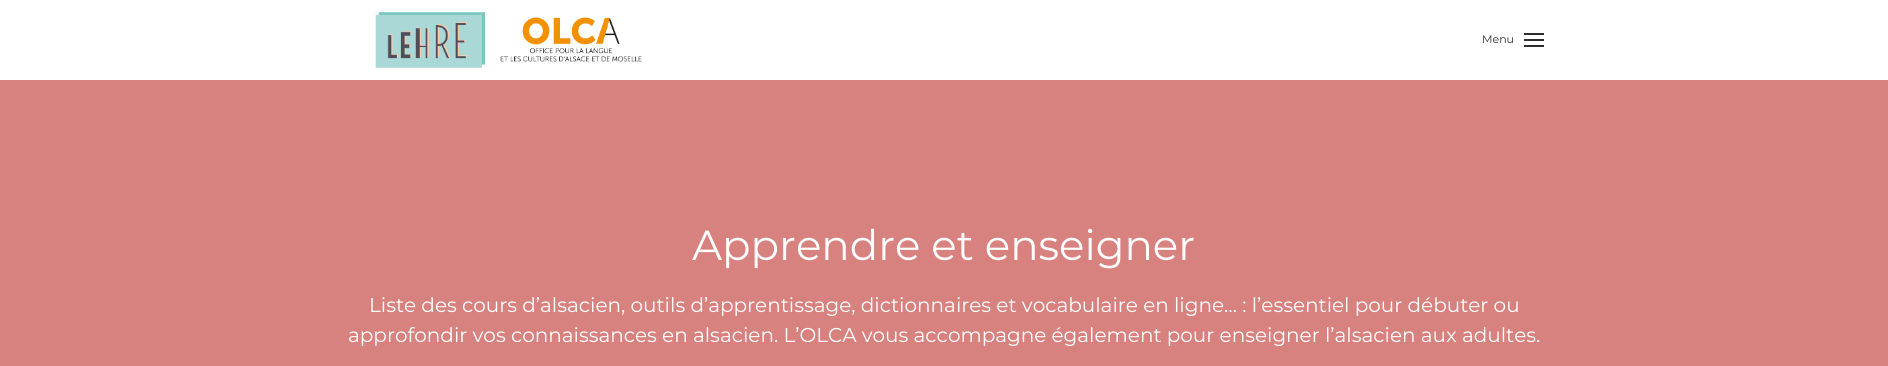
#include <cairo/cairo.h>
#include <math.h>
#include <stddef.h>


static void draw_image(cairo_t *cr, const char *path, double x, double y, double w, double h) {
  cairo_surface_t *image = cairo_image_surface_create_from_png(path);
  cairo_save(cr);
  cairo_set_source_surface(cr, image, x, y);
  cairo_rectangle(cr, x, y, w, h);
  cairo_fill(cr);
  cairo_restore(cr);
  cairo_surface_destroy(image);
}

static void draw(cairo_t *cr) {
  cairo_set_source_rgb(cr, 1, 1, 1);
  cairo_paint(cr);
  draw_image(cr, "images/1.png", 375, 12, 267, 56);
  cairo_set_source_rgb(cr, 45 / 255.0, 46 / 255.0, 51 / 255.0);
  cairo_rectangle(cr, 1524, 33, 20, 2);
  cairo_fill(cr);
  cairo_rectangle(cr, 1524, 39, 20, 2);
  cairo_fill(cr);
  cairo_rectangle(cr, 1524, 45, 20, 2);
  cairo_fill(cr);
  cairo_set_source_rgb(cr, 215 / 255.0, 130 / 255.0, 127 / 255.0);
  cairo_rectangle(cr, 0, 80, 1888, 286);
  cairo_fill(cr);
  cairo_select_font_face(cr, "Montserrat Thin", CAIRO_FONT_SLANT_NORMAL, CAIRO_FONT_WEIGHT_NORMAL);
  cairo_set_font_size(cr, 11);
  cairo_set_source_rgb(cr, 45 / 255.0, 46 / 255.0, 51 / 255.0);
  cairo_move_to(cr, 1482, 43);
  cairo_show_text(cr, "Menu");
  cairo_set_font_size(cr, 42);
  cairo_set_source_rgb(cr, 1, 1, 1);
  cairo_move_to(cr, 692, 260);
  cairo_show_text(cr, "Apprendre et enseigner");
  cairo_set_font_size(cr, 20);
  cairo_move_to(cr, 369, 312);
  cairo_show_text(cr, "Liste des cours d’alsacien, outils d’apprentissage, dictionnaires et vocabulaire en ligne… : l’essentiel pour débuter ou");
  cairo_move_to(cr, 348, 342);
  cairo_show_text(cr, "approfondir vos connaissances en alsacien. L’OLCA vous accompagne également pour enseigner l’alsacien aux adultes.");
}

int main(void) {
  cairo_surface_t *surface = cairo_image_surface_create(CAIRO_FORMAT_RGB24, 1888, 366);
  cairo_t *cr = cairo_create(surface);
  cairo_font_options_t *options = cairo_font_options_create();
  cairo_font_options_set_hint_metrics(options, CAIRO_HINT_METRICS_OFF);
  cairo_font_options_set_hint_style(options, CAIRO_HINT_STYLE_NONE);
  cairo_set_font_options(cr, options);
  cairo_set_miter_limit(cr, 4);
  draw(cr);
  cairo_surface_write_to_png(surface, "out.png");
  cairo_font_options_destroy(options);
  cairo_destroy(cr);
  cairo_surface_destroy(surface);
  return 0;
}
